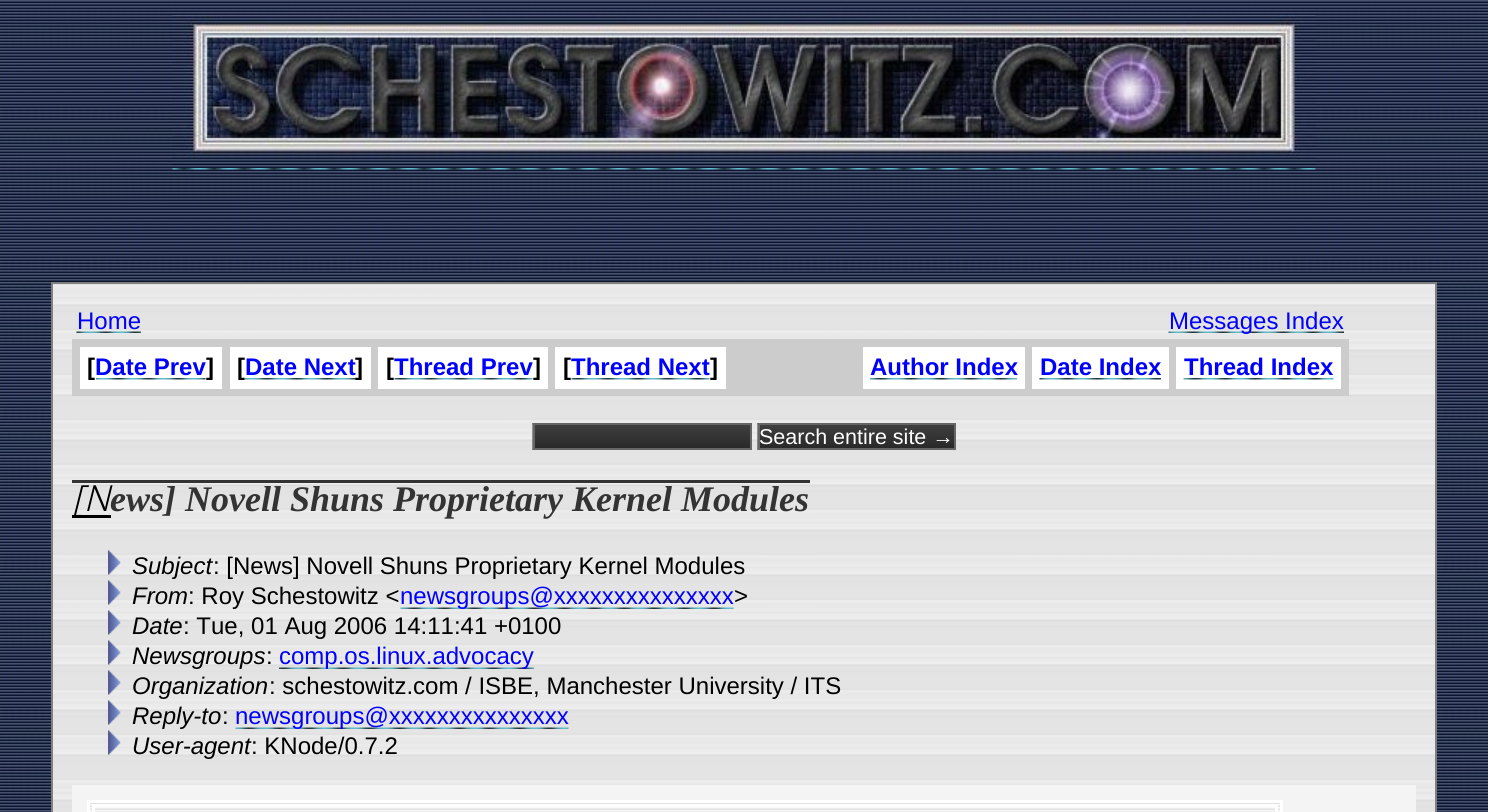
#include <cairo/cairo.h>
#include <math.h>
#include <stddef.h>


static void draw_image(cairo_t *cr, const char *path, double x, double y, double w, double h) {
  cairo_surface_t *image = cairo_image_surface_create_from_png(path);
  cairo_save(cr);
  cairo_set_source_surface(cr, image, x, y);
  cairo_rectangle(cr, x, y, w, h);
  cairo_fill(cr);
  cairo_restore(cr);
  cairo_surface_destroy(image);
}

static void draw(cairo_t *cr) {
  cairo_set_source_rgb(cr, 1, 1, 1);
  cairo_paint(cr);
  draw_image(cr, "images/1.png", 0, 0, 1488, 812);
  draw_image(cr, "images/2.png", 172, 15, 1144, 150);
  draw_image(cr, "images/3.png", 172, 168, 1144, 2);
  draw_image(cr, "images/4.png", 53, 284, 1382, 528);
  cairo_rectangle(cr, 52, 283, 1384, 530);
  cairo_set_source_rgb(cr, 128 / 255.0, 128 / 255.0, 128 / 255.0);
  cairo_stroke(cr);
  draw_image(cr, "images/5.png", 76, 331, 65, 2);
  draw_image(cr, "images/6.png", 1168, 331, 176, 2);
  cairo_set_source_rgb(cr, 204 / 255.0, 204 / 255.0, 204 / 255.0);
  cairo_rectangle(cr, 72, 339, 1277, 57);
  cairo_fill(cr);
  cairo_set_source_rgb(cr, 1, 1, 1);
  cairo_rectangle(cr, 80, 347, 142, 42);
  cairo_fill(cr);
  draw_image(cr, "images/7.png", 96, 378, 110, 2);
  cairo_rectangle(cr, 230, 347, 141, 42);
  cairo_fill(cr);
  cairo_rectangle(cr, 378, 347, 170, 42);
  cairo_fill(cr);
  draw_image(cr, "images/9.png", 394, 378, 139, 2);
  cairo_rectangle(cr, 555, 347, 171, 42);
  cairo_fill(cr);
  draw_image(cr, "images/9.png", 571, 378, 139, 2);
  cairo_rectangle(cr, 863, 347, 162, 42);
  cairo_fill(cr);
  draw_image(cr, "images/10.png", 870, 378, 147, 2);
  cairo_rectangle(cr, 1032, 347, 137, 42);
  cairo_fill(cr);
  draw_image(cr, "images/11.png", 1039, 378, 122, 2);
  cairo_rectangle(cr, 1176, 347, 165, 42);
  cairo_fill(cr);
  draw_image(cr, "images/12.png", 1183, 378, 151, 2);
  draw_image(cr, "images/13.png", 532, 423, 218, 27);
  cairo_rectangle(cr, 534, 424, 217, 25);
  cairo_set_source_rgb(cr, 102 / 255.0, 102 / 255.0, 102 / 255.0);
  cairo_stroke(cr);
  draw_image(cr, "images/14.png", 757, 423, 197, 27);
  cairo_rectangle(cr, 759, 424, 196, 25);
  cairo_stroke(cr);
  cairo_set_source_rgb(cr, 0, 0, 0);
  cairo_rectangle(cr, 72, 515, 39, 3);
  cairo_fill(cr);
  cairo_set_source_rgb(cr, 51 / 255.0, 51 / 255.0, 51 / 255.0);
  cairo_rectangle(cr, 72, 480, 738, 3);
  cairo_fill(cr);
  draw_image(cr, "images/15.png", 108, 550, 13, 25);
  draw_image(cr, "images/16.png", 108, 580, 13, 25);
  draw_image(cr, "images/17.png", 400, 607, 334, 2);
  draw_image(cr, "images/18.png", 108, 610, 13, 25);
  draw_image(cr, "images/19.png", 108, 640, 13, 25);
  draw_image(cr, "images/20.png", 279, 667, 255, 2);
  draw_image(cr, "images/21.png", 108, 670, 13, 25);
  draw_image(cr, "images/18.png", 108, 700, 13, 25);
  draw_image(cr, "images/22.png", 235, 727, 334, 2);
  draw_image(cr, "images/19.png", 108, 730, 13, 25);
  cairo_set_source_rgb(cr, 244 / 255.0, 244 / 255.0, 244 / 255.0);
  cairo_rectangle(cr, 72, 785, 1344, 27);
  cairo_fill(cr);
  draw_image(cr, "images/23.png", 90, 803, 1190, 9);
  cairo_rectangle(cr, 88.5, 801.5, 1193, 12);
  cairo_set_source_rgb(cr, 1, 1, 1);
  cairo_set_line_width(cr, 3);
  cairo_stroke(cr);
  cairo_rectangle(cr, 93.5, 805.5, 1183, 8);
  cairo_stroke(cr);
  cairo_select_font_face(cr, "Liberation Sans", CAIRO_FONT_SLANT_NORMAL, CAIRO_FONT_WEIGHT_NORMAL);
  cairo_set_font_size(cr, 24);
  cairo_set_source_rgb(cr, 0, 0, 1);
  cairo_move_to(cr, 77, 329);
  cairo_show_text(cr, "Home");
  cairo_move_to(cr, 1169, 329);
  cairo_show_text(cr, "Messages Index");
  cairo_select_font_face(cr, "Liberation Sans", CAIRO_FONT_SLANT_NORMAL, CAIRO_FONT_WEIGHT_BOLD);
  cairo_set_source_rgb(cr, 0, 0, 0);
  cairo_move_to(cr, 87, 375);
  cairo_show_text(cr, "[");
  cairo_set_source_rgb(cr, 0, 0, 1);
  cairo_move_to(cr, 95, 375);
  cairo_show_text(cr, "Date Prev");
  cairo_set_source_rgb(cr, 0, 0, 0);
  cairo_move_to(cr, 206, 375);
  cairo_show_text(cr, "]");
  cairo_move_to(cr, 237, 375);
  cairo_show_text(cr, "[");
  cairo_set_source_rgb(cr, 0, 0, 1);
  cairo_move_to(cr, 245, 375);
  cairo_show_text(cr, "Date Next");
  draw_image(cr, "images/8.png", 244, 378, 112, 2);
  cairo_set_source_rgb(cr, 0, 0, 0);
  cairo_move_to(cr, 355, 375);
  cairo_show_text(cr, "]");
  cairo_move_to(cr, 386, 375);
  cairo_show_text(cr, "[");
  cairo_set_source_rgb(cr, 0, 0, 1);
  cairo_move_to(cr, 394, 375);
  cairo_show_text(cr, "Thread Prev");
  cairo_set_source_rgb(cr, 0, 0, 0);
  cairo_move_to(cr, 533, 375);
  cairo_show_text(cr, "]");
  cairo_move_to(cr, 563, 375);
  cairo_show_text(cr, "[");
  cairo_set_source_rgb(cr, 0, 0, 1);
  cairo_move_to(cr, 571, 375);
  cairo_show_text(cr, "Thread Next");
  cairo_set_source_rgb(cr, 0, 0, 0);
  cairo_move_to(cr, 710, 375);
  cairo_show_text(cr, "]");
  cairo_set_source_rgb(cr, 0, 0, 1);
  cairo_move_to(cr, 870, 375);
  cairo_show_text(cr, "Author Index");
  cairo_move_to(cr, 1040, 375);
  cairo_show_text(cr, "Date Index");
  cairo_move_to(cr, 1184, 375);
  cairo_show_text(cr, "Thread Index");
  cairo_select_font_face(cr, "Liberation Sans", CAIRO_FONT_SLANT_NORMAL, CAIRO_FONT_WEIGHT_NORMAL);
  cairo_set_font_size(cr, 21.5);
  cairo_set_source_rgb(cr, 1, 1, 1);
  cairo_move_to(cr, 759, 444);
  cairo_show_text(cr, "Search entire site →");
  cairo_select_font_face(cr, "Noto Sans Light", CAIRO_FONT_SLANT_ITALIC, CAIRO_FONT_WEIGHT_NORMAL);
  cairo_set_font_size(cr, 36);
  cairo_set_source_rgb(cr, 0, 0, 0);
  cairo_move_to(cr, 72, 511);
  cairo_show_text(cr, "[N");
  cairo_select_font_face(cr, "Liberation Serif", CAIRO_FONT_SLANT_ITALIC, CAIRO_FONT_WEIGHT_BOLD);
  cairo_set_source_rgb(cr, 51 / 255.0, 51 / 255.0, 51 / 255.0);
  cairo_move_to(cr, 110, 511);
  cairo_show_text(cr, "ews] Novell Shuns Proprietary Kernel Modules");
  cairo_select_font_face(cr, "Liberation Sans", CAIRO_FONT_SLANT_ITALIC, CAIRO_FONT_WEIGHT_NORMAL);
  cairo_set_font_size(cr, 24);
  cairo_set_source_rgb(cr, 0, 0, 0);
  cairo_move_to(cr, 132, 574);
  cairo_show_text(cr, "Subject");
  cairo_select_font_face(cr, "Liberation Sans", CAIRO_FONT_SLANT_NORMAL, CAIRO_FONT_WEIGHT_NORMAL);
  cairo_move_to(cr, 213, 574);
  cairo_show_text(cr, ": [News] Novell Shuns Proprietary Kernel Modules");
  cairo_select_font_face(cr, "Liberation Sans", CAIRO_FONT_SLANT_ITALIC, CAIRO_FONT_WEIGHT_NORMAL);
  cairo_move_to(cr, 132, 604);
  cairo_show_text(cr, "From");
  cairo_select_font_face(cr, "Liberation Sans", CAIRO_FONT_SLANT_NORMAL, CAIRO_FONT_WEIGHT_NORMAL);
  cairo_move_to(cr, 188, 604);
  cairo_show_text(cr, ": Roy Schestowitz <");
  cairo_set_source_rgb(cr, 0, 0, 1);
  cairo_move_to(cr, 400, 604);
  cairo_show_text(cr, "newsgroups@xxxxxxxxxxxxxxx");
  cairo_set_source_rgb(cr, 0, 0, 0);
  cairo_move_to(cr, 734, 604);
  cairo_show_text(cr, ">");
  cairo_select_font_face(cr, "Liberation Sans", CAIRO_FONT_SLANT_ITALIC, CAIRO_FONT_WEIGHT_NORMAL);
  cairo_move_to(cr, 132, 634);
  cairo_show_text(cr, "Date");
  cairo_select_font_face(cr, "Liberation Sans", CAIRO_FONT_SLANT_NORMAL, CAIRO_FONT_WEIGHT_NORMAL);
  cairo_move_to(cr, 183, 634);
  cairo_show_text(cr, ": Tue, 01 Aug 2006 14:11:41 +0100");
  cairo_select_font_face(cr, "Liberation Sans", CAIRO_FONT_SLANT_ITALIC, CAIRO_FONT_WEIGHT_NORMAL);
  cairo_move_to(cr, 132, 664);
  cairo_show_text(cr, "Newsgroups");
  cairo_select_font_face(cr, "Liberation Sans", CAIRO_FONT_SLANT_NORMAL, CAIRO_FONT_WEIGHT_NORMAL);
  cairo_move_to(cr, 266, 664);
  cairo_show_text(cr, ":");
  cairo_set_source_rgb(cr, 0, 0, 1);
  cairo_move_to(cr, 279, 664);
  cairo_show_text(cr, "comp.os.linux.advocacy");
  cairo_select_font_face(cr, "Liberation Sans", CAIRO_FONT_SLANT_ITALIC, CAIRO_FONT_WEIGHT_NORMAL);
  cairo_set_source_rgb(cr, 0, 0, 0);
  cairo_move_to(cr, 132, 694);
  cairo_show_text(cr, "Organization");
  cairo_select_font_face(cr, "Liberation Sans", CAIRO_FONT_SLANT_NORMAL, CAIRO_FONT_WEIGHT_NORMAL);
  cairo_move_to(cr, 269, 694);
  cairo_show_text(cr, ": schestowitz.com / ISBE, Manchester University / ITS");
  cairo_select_font_face(cr, "Liberation Sans", CAIRO_FONT_SLANT_ITALIC, CAIRO_FONT_WEIGHT_NORMAL);
  cairo_move_to(cr, 132, 724);
  cairo_show_text(cr, "Reply-to");
  cairo_select_font_face(cr, "Liberation Sans", CAIRO_FONT_SLANT_NORMAL, CAIRO_FONT_WEIGHT_NORMAL);
  cairo_move_to(cr, 222, 724);
  cairo_show_text(cr, ":");
  cairo_set_source_rgb(cr, 0, 0, 1);
  cairo_move_to(cr, 235, 724);
  cairo_show_text(cr, "newsgroups@xxxxxxxxxxxxxxx");
  cairo_select_font_face(cr, "Liberation Sans", CAIRO_FONT_SLANT_ITALIC, CAIRO_FONT_WEIGHT_NORMAL);
  cairo_set_source_rgb(cr, 0, 0, 0);
  cairo_move_to(cr, 132, 754);
  cairo_show_text(cr, "User-agent");
  cairo_select_font_face(cr, "Liberation Sans", CAIRO_FONT_SLANT_NORMAL, CAIRO_FONT_WEIGHT_NORMAL);
  cairo_move_to(cr, 251, 754);
  cairo_show_text(cr, ": KNode/0.7.2");
}

int main(void) {
  cairo_surface_t *surface = cairo_image_surface_create(CAIRO_FORMAT_RGB24, 1488, 812);
  cairo_t *cr = cairo_create(surface);
  cairo_font_options_t *options = cairo_font_options_create();
  cairo_font_options_set_hint_metrics(options, CAIRO_HINT_METRICS_OFF);
  cairo_font_options_set_hint_style(options, CAIRO_HINT_STYLE_NONE);
  cairo_set_font_options(cr, options);
  cairo_set_miter_limit(cr, 4);
  draw(cr);
  cairo_surface_write_to_png(surface, "out.png");
  cairo_font_options_destroy(options);
  cairo_destroy(cr);
  cairo_surface_destroy(surface);
  return 0;
}
